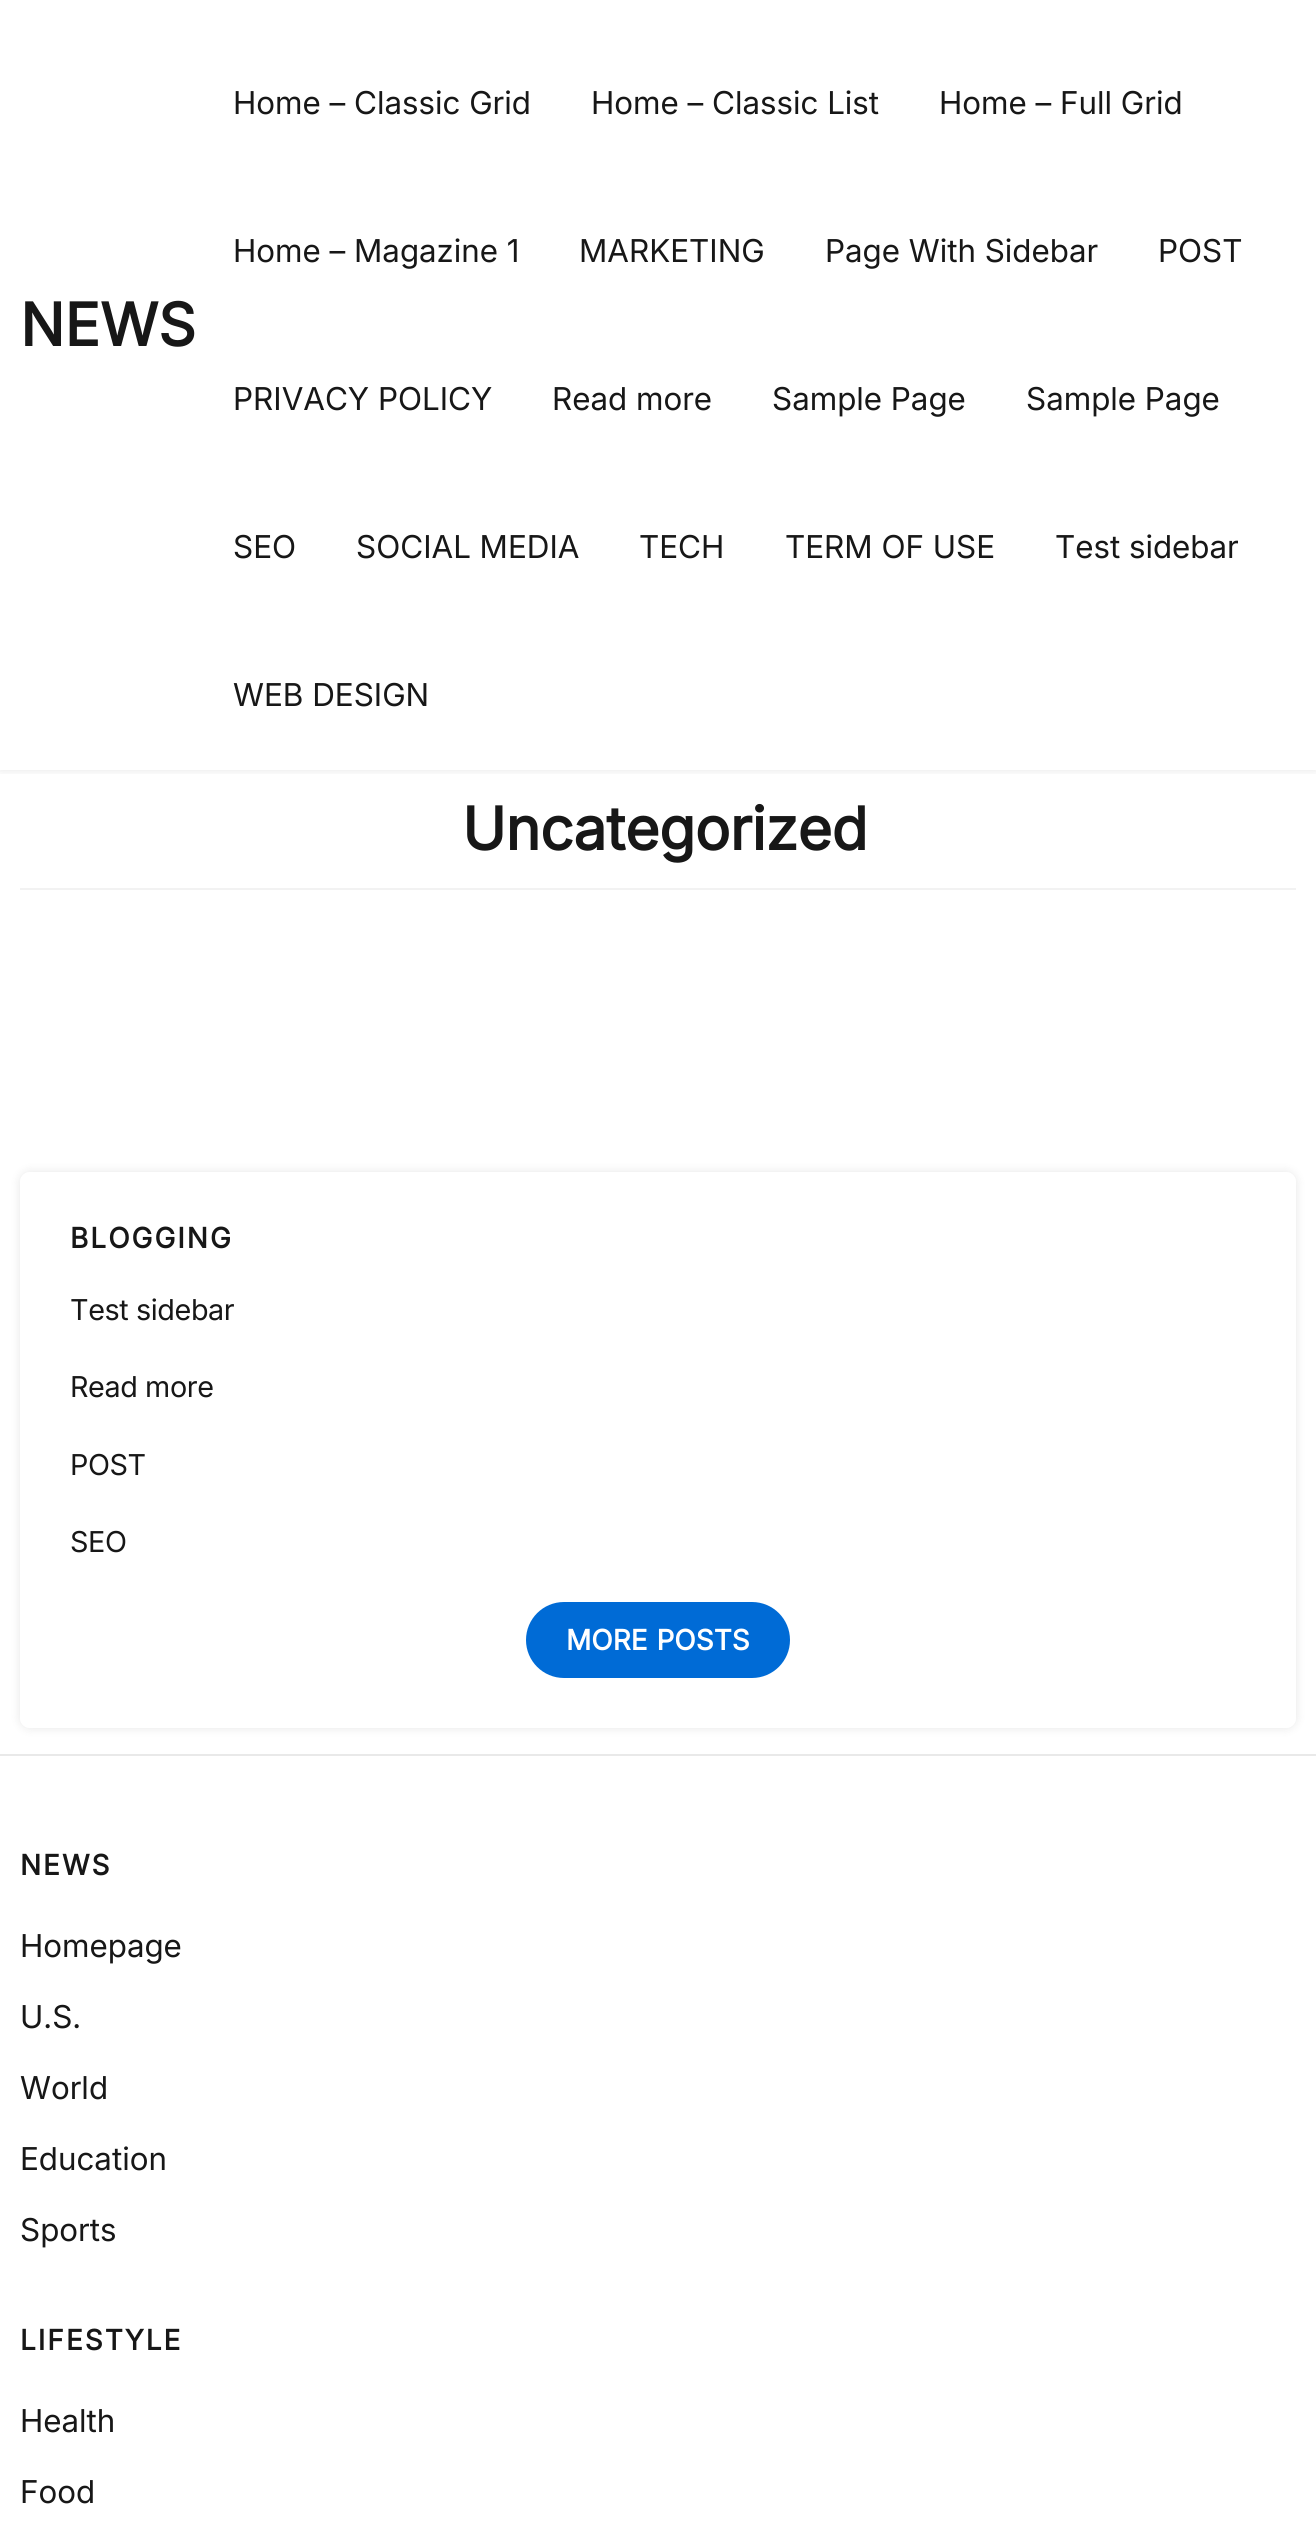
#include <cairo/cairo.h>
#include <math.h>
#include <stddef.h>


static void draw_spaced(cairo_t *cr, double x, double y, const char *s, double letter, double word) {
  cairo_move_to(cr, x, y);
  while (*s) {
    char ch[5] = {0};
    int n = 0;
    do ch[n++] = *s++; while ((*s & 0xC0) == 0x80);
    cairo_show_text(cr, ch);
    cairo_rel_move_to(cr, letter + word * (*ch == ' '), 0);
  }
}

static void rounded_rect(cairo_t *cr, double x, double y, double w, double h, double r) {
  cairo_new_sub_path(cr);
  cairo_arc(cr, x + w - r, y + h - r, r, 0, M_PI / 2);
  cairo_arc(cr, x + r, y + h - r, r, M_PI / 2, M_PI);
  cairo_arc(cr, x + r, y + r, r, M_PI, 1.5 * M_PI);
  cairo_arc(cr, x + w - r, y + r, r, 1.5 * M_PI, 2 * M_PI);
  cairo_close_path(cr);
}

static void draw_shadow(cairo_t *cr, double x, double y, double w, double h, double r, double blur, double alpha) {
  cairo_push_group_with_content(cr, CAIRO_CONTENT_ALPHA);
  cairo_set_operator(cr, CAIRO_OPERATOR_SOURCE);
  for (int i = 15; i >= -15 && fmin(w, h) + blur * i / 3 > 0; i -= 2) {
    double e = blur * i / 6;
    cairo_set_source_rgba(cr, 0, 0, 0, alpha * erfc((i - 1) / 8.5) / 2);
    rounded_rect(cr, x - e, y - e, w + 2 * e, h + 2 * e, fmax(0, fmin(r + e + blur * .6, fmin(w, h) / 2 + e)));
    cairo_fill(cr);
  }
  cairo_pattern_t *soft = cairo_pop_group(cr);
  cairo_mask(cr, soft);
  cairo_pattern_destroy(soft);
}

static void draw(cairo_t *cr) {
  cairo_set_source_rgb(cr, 1, 1, 1);
  cairo_paint(cr);
  cairo_save(cr);
  cairo_rectangle(cr, 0, 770, 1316, 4);
  cairo_clip(cr);
  cairo_set_source_rgb(cr, 0, 0, 0);
  draw_shadow(cr, 0, -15, 1316, 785, 0, 5, 0.1);
  cairo_restore(cr);
  cairo_set_source_rgb(cr, 242 / 255.0, 242 / 255.0, 242 / 255.0);
  cairo_rectangle(cr, 20, 888, 1276, 2);
  cairo_fill(cr);
  cairo_save(cr);
  cairo_set_fill_rule(cr, CAIRO_FILL_RULE_EVEN_ODD);
  cairo_new_path(cr);
  cairo_move_to(cr, 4, 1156);
  cairo_line_to(cr, 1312, 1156);
  cairo_line_to(cr, 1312, 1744);
  cairo_line_to(cr, 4, 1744);
  cairo_close_path(cr);
  cairo_move_to(cr, 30, 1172);
  cairo_line_to(cr, 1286, 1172);
  cairo_curve_to(cr, 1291.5, 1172, 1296, 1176.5, 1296, 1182);
  cairo_line_to(cr, 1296, 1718);
  cairo_curve_to(cr, 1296, 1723.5, 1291.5, 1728, 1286, 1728);
  cairo_line_to(cr, 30, 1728);
  cairo_curve_to(cr, 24.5, 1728, 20, 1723.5, 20, 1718);
  cairo_line_to(cr, 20, 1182);
  cairo_curve_to(cr, 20, 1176.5, 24.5, 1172, 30, 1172);
  cairo_close_path(cr);
  cairo_clip(cr);
  cairo_set_source_rgb(cr, 0, 0, 0);
  draw_shadow(cr, 20, 1172, 1276, 556, 10, 5, 0.1);
  cairo_restore(cr);
  cairo_set_source_rgb(cr, 0, 107 / 255.0, 214 / 255.0);
  rounded_rect(cr, 526, 1602, 264, 76, 38);
  cairo_fill(cr);
  cairo_set_source_rgb(cr, 233 / 255.0, 233 / 255.0, 233 / 255.0);
  cairo_rectangle(cr, 0, 1754, 1316, 2);
  cairo_fill(cr);
  cairo_select_font_face(cr, "Inter", CAIRO_FONT_SLANT_NORMAL, CAIRO_FONT_WEIGHT_BOLD);
  cairo_set_font_size(cr, 59);
  cairo_set_source_rgb(cr, 23 / 255.0, 23 / 255.0, 23 / 255.0);
  cairo_move_to(cr, 20, 346);
  cairo_show_text(cr, "NEWS");
  cairo_select_font_face(cr, "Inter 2", CAIRO_FONT_SLANT_NORMAL, CAIRO_FONT_WEIGHT_NORMAL);
  cairo_set_font_size(cr, 31.5);
  cairo_move_to(cr, 233, 114);
  cairo_show_text(cr, "Home – Classic Grid");
  cairo_move_to(cr, 591, 114);
  cairo_show_text(cr, "Home – Classic List");
  cairo_move_to(cr, 939, 114);
  cairo_show_text(cr, "Home – Full Grid");
  cairo_move_to(cr, 233, 262);
  cairo_show_text(cr, "Home – Magazine 1");
  cairo_move_to(cr, 579, 262);
  cairo_show_text(cr, "MARKETING");
  cairo_move_to(cr, 825, 262);
  cairo_show_text(cr, "Page With Sidebar");
  cairo_move_to(cr, 1158, 262);
  cairo_show_text(cr, "POST");
  cairo_move_to(cr, 233, 410);
  cairo_show_text(cr, "PRIVACY POLICY");
  cairo_move_to(cr, 552, 410);
  cairo_show_text(cr, "Read more");
  cairo_move_to(cr, 772, 410);
  cairo_show_text(cr, "Sample Page");
  cairo_move_to(cr, 1026, 410);
  cairo_show_text(cr, "Sample Page");
  cairo_move_to(cr, 233, 558);
  cairo_show_text(cr, "SEO");
  cairo_move_to(cr, 356, 558);
  cairo_show_text(cr, "SOCIAL MEDIA");
  cairo_move_to(cr, 639, 558);
  cairo_show_text(cr, "TECH");
  cairo_move_to(cr, 785, 558);
  cairo_show_text(cr, "TERM OF USE");
  cairo_move_to(cr, 1055, 558);
  cairo_show_text(cr, "Test sidebar");
  cairo_move_to(cr, 233, 706);
  cairo_show_text(cr, "WEB DESIGN");
  cairo_select_font_face(cr, "Inter", CAIRO_FONT_SLANT_NORMAL, CAIRO_FONT_WEIGHT_BOLD);
  cairo_set_font_size(cr, 59);
  draw_spaced(cr, 462, 850, "Uncategorized", -0.4, 0);
  cairo_set_font_size(cr, 28);
  draw_spaced(cr, 70, 1248, "BLOGGING", 2, 0);
  cairo_select_font_face(cr, "Inter", CAIRO_FONT_SLANT_NORMAL, CAIRO_FONT_WEIGHT_NORMAL);
  cairo_set_font_size(cr, 28.75);
  draw_spaced(cr, 70, 1320, "Test sidebar", -0.4, 0);
  draw_spaced(cr, 70, 1397, "Read more", -0.4, 0);
  draw_spaced(cr, 70, 1475, "POST", -0.4, 0);
  draw_spaced(cr, 70, 1552, "SEO", -0.4, 0);
  cairo_select_font_face(cr, "Inter", CAIRO_FONT_SLANT_NORMAL, CAIRO_FONT_WEIGHT_BOLD);
  cairo_set_font_size(cr, 28);
  cairo_set_source_rgb(cr, 1, 1, 1);
  draw_spaced(cr, 566, 1650, "MORE POSTS", 0, 1);
  cairo_set_source_rgb(cr, 23 / 255.0, 23 / 255.0, 23 / 255.0);
  draw_spaced(cr, 20, 1875, "NEWS", 2, 0);
  cairo_select_font_face(cr, "Inter 2", CAIRO_FONT_SLANT_NORMAL, CAIRO_FONT_WEIGHT_NORMAL);
  cairo_set_font_size(cr, 31.5);
  cairo_move_to(cr, 20, 1957);
  cairo_show_text(cr, "Homepage");
  cairo_move_to(cr, 20, 2028);
  cairo_show_text(cr, "U.S.");
  cairo_move_to(cr, 20, 2099);
  cairo_show_text(cr, "World");
  cairo_move_to(cr, 20, 2170);
  cairo_show_text(cr, "Education");
  cairo_move_to(cr, 20, 2241);
  cairo_show_text(cr, "Sports");
  cairo_select_font_face(cr, "Inter", CAIRO_FONT_SLANT_NORMAL, CAIRO_FONT_WEIGHT_BOLD);
  cairo_set_font_size(cr, 28);
  draw_spaced(cr, 20, 2350, "LIFESTYLE", 2, 0);
  cairo_select_font_face(cr, "Inter 2", CAIRO_FONT_SLANT_NORMAL, CAIRO_FONT_WEIGHT_NORMAL);
  cairo_set_font_size(cr, 31.5);
  cairo_move_to(cr, 20, 2432);
  cairo_show_text(cr, "Health");
  cairo_move_to(cr, 20, 2503);
  cairo_show_text(cr, "Food");
}

int main(void) {
  cairo_surface_t *surface = cairo_image_surface_create(CAIRO_FORMAT_RGB24, 1316, 2547);
  cairo_t *cr = cairo_create(surface);
  cairo_font_options_t *options = cairo_font_options_create();
  cairo_font_options_set_hint_metrics(options, CAIRO_HINT_METRICS_OFF);
  cairo_font_options_set_hint_style(options, CAIRO_HINT_STYLE_NONE);
  cairo_set_font_options(cr, options);
  cairo_set_miter_limit(cr, 4);
  draw(cr);
  cairo_surface_write_to_png(surface, "out.png");
  cairo_font_options_destroy(options);
  cairo_destroy(cr);
  cairo_surface_destroy(surface);
  return 0;
}
